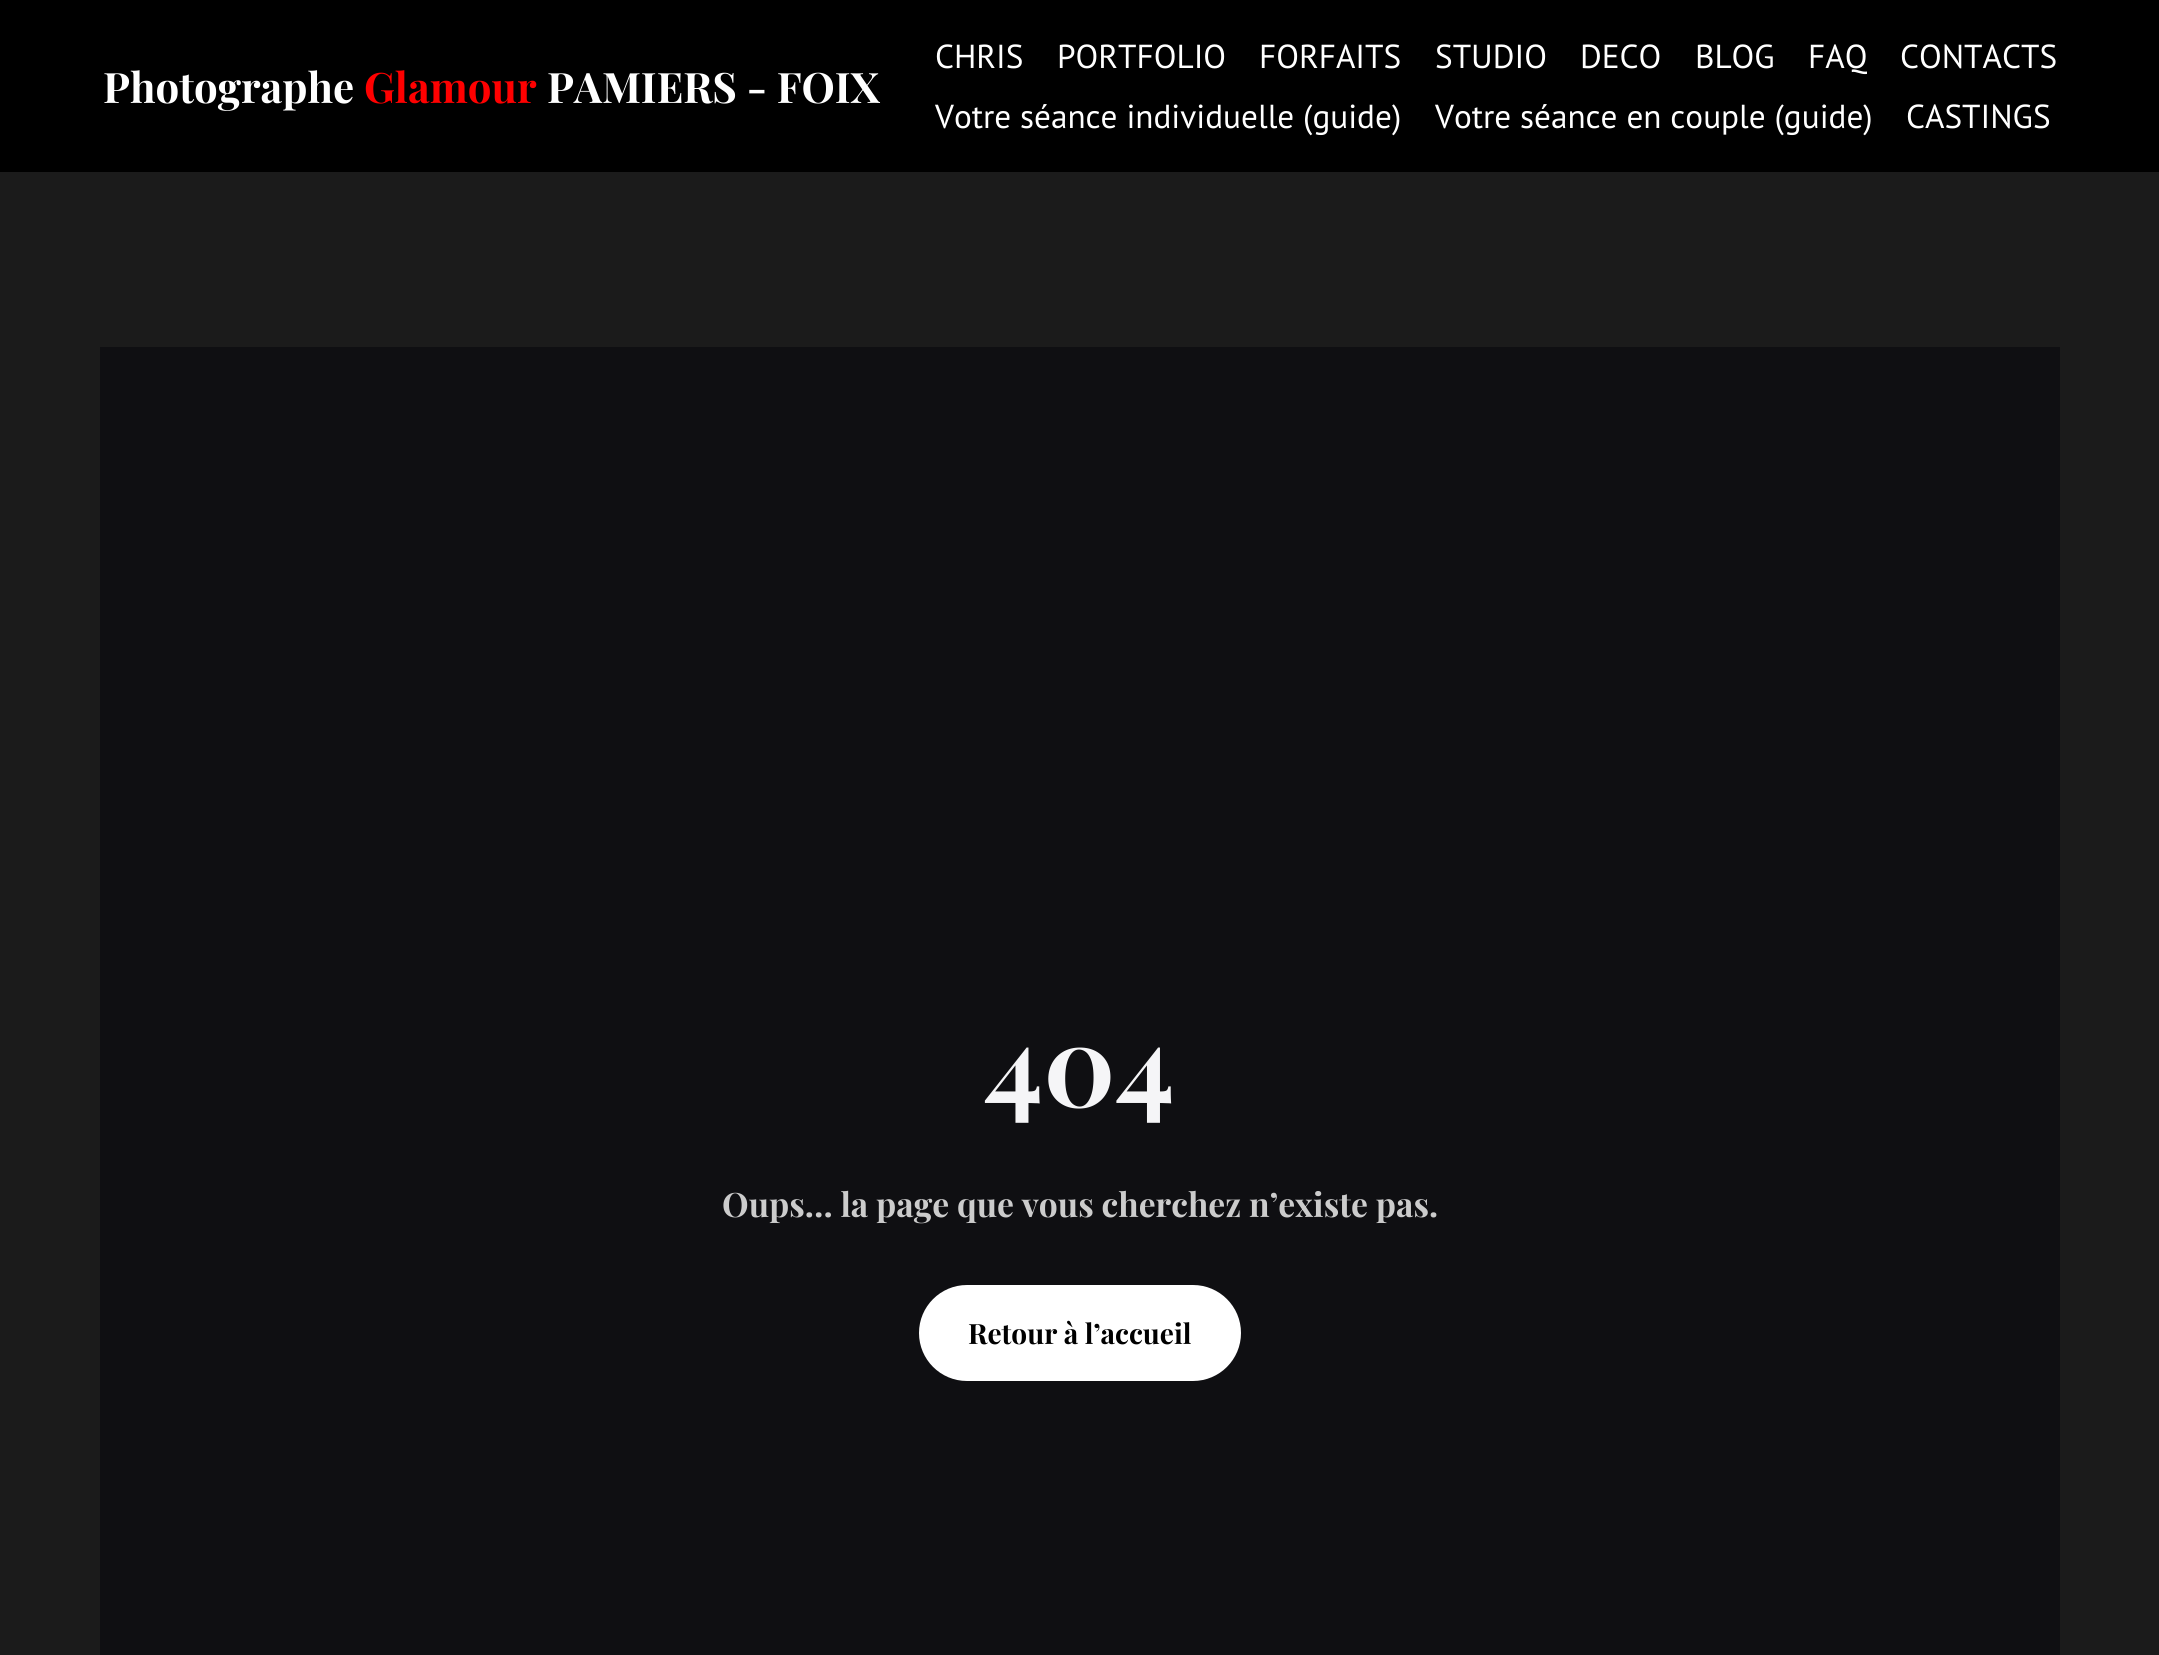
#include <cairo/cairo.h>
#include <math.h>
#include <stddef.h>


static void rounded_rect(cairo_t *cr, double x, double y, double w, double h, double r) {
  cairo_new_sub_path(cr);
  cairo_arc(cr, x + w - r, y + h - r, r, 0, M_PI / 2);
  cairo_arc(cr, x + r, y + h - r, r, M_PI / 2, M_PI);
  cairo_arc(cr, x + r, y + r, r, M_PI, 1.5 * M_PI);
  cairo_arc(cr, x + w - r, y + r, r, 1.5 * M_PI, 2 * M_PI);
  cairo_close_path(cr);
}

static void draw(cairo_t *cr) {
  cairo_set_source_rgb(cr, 0, 0, 0);
  cairo_paint(cr);
  cairo_set_source_rgb(cr, 27 / 255.0, 27 / 255.0, 27 / 255.0);
  cairo_rectangle(cr, 0, 172, 2159, 1483);
  cairo_fill(cr);
  cairo_set_source_rgb(cr, 15 / 255.0, 15 / 255.0, 18 / 255.0);
  cairo_rectangle(cr, 100, 347, 1960, 1308);
  cairo_fill(cr);
  cairo_set_source_rgb(cr, 1, 1, 1);
  rounded_rect(cr, 919, 1285, 322, 96, 48);
  cairo_fill(cr);
  cairo_select_font_face(cr, "Playfair Display", CAIRO_FONT_SLANT_NORMAL, CAIRO_FONT_WEIGHT_BOLD);
  cairo_set_font_size(cr, 42);
  cairo_move_to(cr, 103, 103);
  cairo_show_text(cr, "Photographe");
  cairo_set_source_rgb(cr, 1, 0, 0);
  cairo_move_to(cr, 364, 103);
  cairo_show_text(cr, "Glamour");
  cairo_set_source_rgb(cr, 1, 1, 1);
  cairo_move_to(cr, 547, 103);
  cairo_show_text(cr, "PAMIERS - FOIX");
  cairo_select_font_face(cr, "PT Sans", CAIRO_FONT_SLANT_NORMAL, CAIRO_FONT_WEIGHT_NORMAL);
  cairo_set_font_size(cr, 33.25);
  cairo_move_to(cr, 935, 68);
  cairo_show_text(cr, "CHRIS");
  cairo_move_to(cr, 1057, 68);
  cairo_show_text(cr, "PORTFOLIO");
  cairo_move_to(cr, 1259, 68);
  cairo_show_text(cr, "FORFAITS");
  cairo_move_to(cr, 1435, 68);
  cairo_show_text(cr, "STUDIO");
  cairo_move_to(cr, 1580, 68);
  cairo_show_text(cr, "DECO");
  cairo_move_to(cr, 1695, 68);
  cairo_show_text(cr, "BLOG");
  cairo_save(cr);
  cairo_rectangle(cr, 1808, 35, 59, 42);
  cairo_clip(cr);
  cairo_move_to(cr, 1808, 68);
  cairo_show_text(cr, "FAQ");
  cairo_restore(cr);
  cairo_move_to(cr, 1900, 68);
  cairo_show_text(cr, "CONTACTS");
  cairo_move_to(cr, 935, 128);
  cairo_show_text(cr, "Votre séance individuelle (guide)");
  cairo_move_to(cr, 1435, 128);
  cairo_show_text(cr, "Votre séance en couple (guide)");
  cairo_move_to(cr, 1906, 128);
  cairo_show_text(cr, "CASTINGS");
  cairo_select_font_face(cr, "Playfair Display", CAIRO_FONT_SLANT_NORMAL, CAIRO_FONT_WEIGHT_BOLD);
  cairo_set_font_size(cr, 112);
  cairo_set_source_rgb(cr, 245 / 255.0, 245 / 255.0, 247 / 255.0);
  cairo_move_to(cr, 984, 1107);
  cairo_show_text(cr, "404");
  cairo_set_font_size(cr, 33.6);
  cairo_set_source_rgb(cr, 204 / 255.0, 204 / 255.0, 204 / 255.0);
  cairo_move_to(cr, 722, 1217);
  cairo_show_text(cr, "Oups… la page que vous cherchez n’existe pas.");
  cairo_set_font_size(cr, 28);
  cairo_set_source_rgb(cr, 0, 0, 0);
  cairo_move_to(cr, 968, 1344);
  cairo_show_text(cr, "Retour à l’accueil");
}

int main(void) {
  cairo_surface_t *surface = cairo_image_surface_create(CAIRO_FORMAT_RGB24, 2159, 1655);
  cairo_t *cr = cairo_create(surface);
  cairo_font_options_t *options = cairo_font_options_create();
  cairo_font_options_set_hint_metrics(options, CAIRO_HINT_METRICS_OFF);
  cairo_font_options_set_hint_style(options, CAIRO_HINT_STYLE_NONE);
  cairo_set_font_options(cr, options);
  cairo_set_miter_limit(cr, 4);
  draw(cr);
  cairo_surface_write_to_png(surface, "out.png");
  cairo_font_options_destroy(options);
  cairo_destroy(cr);
  cairo_surface_destroy(surface);
  return 0;
}
